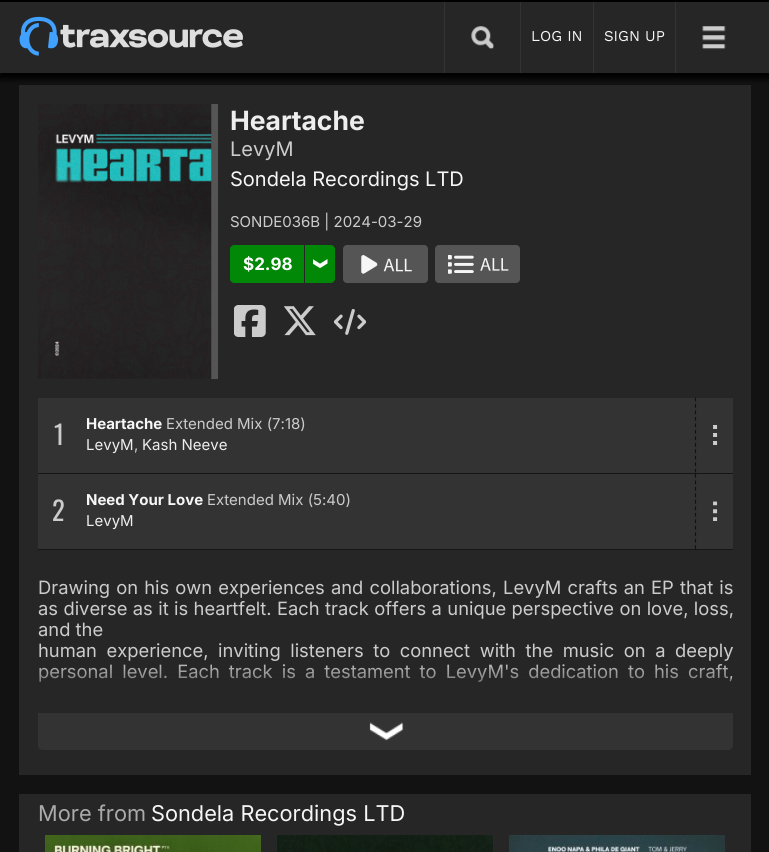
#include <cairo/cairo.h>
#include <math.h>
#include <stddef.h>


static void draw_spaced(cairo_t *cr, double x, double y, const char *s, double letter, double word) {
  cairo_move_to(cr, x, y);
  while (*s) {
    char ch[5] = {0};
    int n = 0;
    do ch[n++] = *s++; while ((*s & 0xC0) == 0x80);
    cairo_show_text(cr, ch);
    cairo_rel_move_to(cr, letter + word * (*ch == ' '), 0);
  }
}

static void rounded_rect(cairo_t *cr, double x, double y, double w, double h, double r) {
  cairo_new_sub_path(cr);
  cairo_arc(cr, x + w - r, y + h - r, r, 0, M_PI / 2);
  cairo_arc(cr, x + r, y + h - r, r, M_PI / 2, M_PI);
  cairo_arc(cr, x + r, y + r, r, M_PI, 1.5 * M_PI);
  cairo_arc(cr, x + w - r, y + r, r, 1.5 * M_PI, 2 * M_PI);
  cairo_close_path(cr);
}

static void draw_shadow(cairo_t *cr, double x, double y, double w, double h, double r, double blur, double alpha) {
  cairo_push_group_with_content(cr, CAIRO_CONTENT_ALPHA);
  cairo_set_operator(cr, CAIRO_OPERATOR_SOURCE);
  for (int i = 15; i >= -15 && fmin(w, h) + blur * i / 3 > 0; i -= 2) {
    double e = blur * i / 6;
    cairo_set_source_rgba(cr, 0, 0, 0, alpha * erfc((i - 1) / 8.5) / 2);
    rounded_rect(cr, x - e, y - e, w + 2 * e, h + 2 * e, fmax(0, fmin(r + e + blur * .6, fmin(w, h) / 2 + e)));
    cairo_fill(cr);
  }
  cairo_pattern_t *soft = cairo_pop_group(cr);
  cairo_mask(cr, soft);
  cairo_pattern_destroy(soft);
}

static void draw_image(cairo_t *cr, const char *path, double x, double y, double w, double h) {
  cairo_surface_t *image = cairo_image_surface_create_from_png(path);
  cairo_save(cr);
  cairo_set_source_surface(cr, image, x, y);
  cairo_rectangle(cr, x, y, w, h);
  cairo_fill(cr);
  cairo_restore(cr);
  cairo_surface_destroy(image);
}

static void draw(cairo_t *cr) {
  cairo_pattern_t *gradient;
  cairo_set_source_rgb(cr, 18 / 255.0, 18 / 255.0, 18 / 255.0);
  cairo_paint(cr);
  cairo_set_source_rgb(cr, 38 / 255.0, 38 / 255.0, 38 / 255.0);
  cairo_rectangle(cr, 19, 85, 732, 690);
  cairo_fill(cr);
  cairo_set_source_rgb(cr, 0, 0, 0);
  draw_shadow(cr, -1, 4, 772, 75, 0, 3, 1);
  cairo_set_source_rgb(cr, 38 / 255.0, 38 / 255.0, 38 / 255.0);
  cairo_rectangle(cr, 0, 2, 769, 71);
  cairo_fill(cr);
  cairo_set_source_rgb(cr, 51 / 255.0, 51 / 255.0, 51 / 255.0);
  cairo_rectangle(cr, 444, 0, 1, 73);
  cairo_fill(cr);
  cairo_rectangle(cr, 520, 0, 1, 73);
  cairo_fill(cr);
  cairo_rectangle(cr, 593, 0, 1, 73);
  cairo_fill(cr);
  cairo_rectangle(cr, 675, 0, 1, 73);
  cairo_fill(cr);
  cairo_set_source_rgb(cr, 0, 0, 0);
  cairo_rectangle(cr, 0, 0, 769, 2);
  cairo_fill(cr);
  draw_image(cr, "images/1.png", 19, 16, 224, 40);
  draw_image(cr, "images/2.png", 471, 26, 23, 24);
  draw_image(cr, "images/3.png", 702, 26, 24, 24);
  cairo_set_source_rgb(cr, 85 / 255.0, 85 / 255.0, 85 / 255.0);
  cairo_rectangle(cr, 211, 104, 7, 275);
  cairo_fill(cr);
  draw_image(cr, "images/4.png", 38, 104, 174, 275);
  cairo_set_source_rgb(cr, 0, 136 / 255.0, 6 / 255.0);
  cairo_new_path(cr);
  cairo_move_to(cr, 234, 245);
  cairo_line_to(cr, 304, 245);
  cairo_line_to(cr, 304, 283);
  cairo_line_to(cr, 234, 283);
  cairo_curve_to(cr, 232, 283, 230, 281, 230, 279);
  cairo_line_to(cr, 230, 249);
  cairo_curve_to(cr, 230, 247, 232, 245, 234, 245);
  cairo_close_path(cr);
  cairo_fill(cr);
  cairo_new_path(cr);
  cairo_move_to(cr, 305, 245);
  cairo_line_to(cr, 331, 245);
  cairo_curve_to(cr, 333, 245, 335, 247, 335, 249);
  cairo_line_to(cr, 335, 279);
  cairo_curve_to(cr, 335, 281, 333, 283, 331, 283);
  cairo_line_to(cr, 305, 283);
  cairo_close_path(cr);
  cairo_fill(cr);
  draw_image(cr, "images/5.png", 313, 259, 15, 9);
  cairo_set_source_rgb(cr, 85 / 255.0, 85 / 255.0, 85 / 255.0);
  rounded_rect(cr, 343, 245, 85, 38, 4);
  cairo_fill(cr);
  draw_image(cr, "images/6.png", 361, 255, 51, 19);
  rounded_rect(cr, 435, 245, 85, 38, 4);
  cairo_fill(cr);
  draw_image(cr, "images/7.png", 448, 255, 61, 19);
  draw_image(cr, "images/8.png", 234, 305, 32, 32);
  draw_image(cr, "images/9.png", 284, 306, 32, 30);
  draw_image(cr, "images/10.png", 334, 309, 32, 26);
  cairo_set_source_rgb(cr, 51 / 255.0, 51 / 255.0, 51 / 255.0);
  cairo_rectangle(cr, 38, 398, 695, 75);
  cairo_fill(cr);
  cairo_set_source_rgb(cr, 22 / 255.0, 22 / 255.0, 22 / 255.0);
  cairo_rectangle(cr, 38, 473, 695, 1);
  cairo_fill(cr);
  cairo_new_path(cr);
  cairo_move_to(cr, 695.5, 397.5);
  cairo_line_to(cr, 695.5, 472.5);
  cairo_set_source_rgb(cr, 17 / 255.0, 17 / 255.0, 17 / 255.0);
  cairo_set_line_width(cr, 1.2);
  cairo_set_dash(cr, (double[]){3.75, 2.73}, 2, 0);
  cairo_stroke(cr);
  draw_image(cr, "images/11.png", 713, 425, 5, 20);
  cairo_set_source_rgb(cr, 51 / 255.0, 51 / 255.0, 51 / 255.0);
  cairo_rectangle(cr, 38, 474, 695, 75);
  cairo_fill(cr);
  cairo_set_source_rgb(cr, 22 / 255.0, 22 / 255.0, 22 / 255.0);
  cairo_rectangle(cr, 38, 549, 695, 1);
  cairo_fill(cr);
  cairo_new_path(cr);
  cairo_move_to(cr, 695.5, 474);
  cairo_line_to(cr, 695.5, 549);
  cairo_set_source_rgb(cr, 17 / 255.0, 17 / 255.0, 17 / 255.0);
  cairo_stroke(cr);
  draw_image(cr, "images/12.png", 713, 501, 5, 20);
  cairo_set_source_rgb(cr, 51 / 255.0, 51 / 255.0, 51 / 255.0);
  cairo_new_path(cr);
  cairo_move_to(cr, 38, 713);
  cairo_line_to(cr, 733, 713);
  cairo_line_to(cr, 733, 745);
  cairo_curve_to(cr, 733, 748, 731, 750, 728, 750);
  cairo_line_to(cr, 43, 750);
  cairo_curve_to(cr, 40, 750, 38, 748, 38, 745);
  cairo_close_path(cr);
  cairo_fill(cr);
  draw_image(cr, "images/13.png", 369, 722, 35, 19);
  cairo_set_source_rgb(cr, 38 / 255.0, 38 / 255.0, 38 / 255.0);
  cairo_rectangle(cr, 19, 794, 732, 58);
  cairo_fill(cr);
  draw_image(cr, "images/14.png", 45, 835, 216, 17);
  cairo_set_source_rgb(cr, 58 / 255.0, 58 / 255.0, 58 / 255.0);
  cairo_rectangle(cr, 276, 835, 218, 17);
  cairo_fill(cr);
  draw_image(cr, "images/15.png", 276, 835, 218, 17);
  draw_image(cr, "images/16.png", 509, 835, 216, 17);
  cairo_select_font_face(cr, "Work Sans", CAIRO_FONT_SLANT_NORMAL, CAIRO_FONT_WEIGHT_NORMAL);
  cairo_set_font_size(cr, 15);
  cairo_set_source_rgb(cr, 246 / 255.0, 246 / 255.0, 246 / 255.0);
  cairo_move_to(cr, 531, 41);
  cairo_show_text(cr, "LOG IN");
  cairo_move_to(cr, 604, 41);
  cairo_show_text(cr, "SIGN UP");
  cairo_select_font_face(cr, "Inter", CAIRO_FONT_SLANT_NORMAL, CAIRO_FONT_WEIGHT_BOLD);
  cairo_set_font_size(cr, 26.5);
  cairo_set_source_rgb(cr, 238 / 255.0, 238 / 255.0, 238 / 255.0);
  cairo_move_to(cr, 230, 130);
  cairo_show_text(cr, "Heartache");
  cairo_select_font_face(cr, "Inter", CAIRO_FONT_SLANT_NORMAL, CAIRO_FONT_WEIGHT_NORMAL);
  cairo_set_font_size(cr, 20);
  cairo_set_source_rgb(cr, 204 / 255.0, 204 / 255.0, 204 / 255.0);
  cairo_move_to(cr, 230, 156);
  cairo_show_text(cr, "LevyM");
  cairo_set_source_rgb(cr, 246 / 255.0, 246 / 255.0, 246 / 255.0);
  cairo_move_to(cr, 230, 186);
  cairo_show_text(cr, "Sondela Recordings LTD");
  cairo_set_font_size(cr, 15);
  cairo_set_source_rgb(cr, 204 / 255.0, 204 / 255.0, 204 / 255.0);
  cairo_move_to(cr, 230, 227);
  cairo_show_text(cr, "SONDE036B | 2024-03-29");
  cairo_select_font_face(cr, "Inter", CAIRO_FONT_SLANT_NORMAL, CAIRO_FONT_WEIGHT_BOLD);
  cairo_set_font_size(cr, 17);
  cairo_set_source_rgb(cr, 1, 1, 1);
  cairo_move_to(cr, 243, 270);
  cairo_show_text(cr, "$2.98");
  cairo_select_font_face(cr, "Oswald", CAIRO_FONT_SLANT_NORMAL, CAIRO_FONT_WEIGHT_NORMAL);
  cairo_set_font_size(cr, 26.5);
  cairo_set_source_rgb(cr, 204 / 255.0, 204 / 255.0, 204 / 255.0);
  draw_spaced(cr, 54, 445, "1", -1, 0);
  cairo_select_font_face(cr, "Inter", CAIRO_FONT_SLANT_NORMAL, CAIRO_FONT_WEIGHT_BOLD);
  cairo_set_font_size(cr, 15);
  cairo_set_source_rgb(cr, 246 / 255.0, 246 / 255.0, 246 / 255.0);
  cairo_move_to(cr, 86, 429);
  cairo_show_text(cr, "Heartache");
  cairo_select_font_face(cr, "Inter", CAIRO_FONT_SLANT_NORMAL, CAIRO_FONT_WEIGHT_NORMAL);
  cairo_set_source_rgb(cr, 204 / 255.0, 204 / 255.0, 204 / 255.0);
  cairo_move_to(cr, 166, 429);
  cairo_show_text(cr, "Extended Mix (7:18)");
  cairo_set_source_rgb(cr, 238 / 255.0, 238 / 255.0, 238 / 255.0);
  cairo_move_to(cr, 86, 450);
  cairo_show_text(cr, "LevyM");
  cairo_set_source_rgb(cr, 204 / 255.0, 204 / 255.0, 204 / 255.0);
  cairo_move_to(cr, 134, 450);
  cairo_show_text(cr, ",");
  cairo_set_source_rgb(cr, 238 / 255.0, 238 / 255.0, 238 / 255.0);
  cairo_move_to(cr, 142, 450);
  cairo_show_text(cr, "Kash Neeve");
  cairo_select_font_face(cr, "Oswald", CAIRO_FONT_SLANT_NORMAL, CAIRO_FONT_WEIGHT_NORMAL);
  cairo_set_font_size(cr, 26.5);
  cairo_set_source_rgb(cr, 204 / 255.0, 204 / 255.0, 204 / 255.0);
  draw_spaced(cr, 52, 521, "2", -1, 0);
  cairo_select_font_face(cr, "Inter", CAIRO_FONT_SLANT_NORMAL, CAIRO_FONT_WEIGHT_BOLD);
  cairo_set_font_size(cr, 15);
  cairo_set_source_rgb(cr, 246 / 255.0, 246 / 255.0, 246 / 255.0);
  cairo_move_to(cr, 86, 505);
  cairo_show_text(cr, "Need Your Love");
  cairo_select_font_face(cr, "Inter", CAIRO_FONT_SLANT_NORMAL, CAIRO_FONT_WEIGHT_NORMAL);
  cairo_set_source_rgb(cr, 204 / 255.0, 204 / 255.0, 204 / 255.0);
  cairo_move_to(cr, 207, 505);
  cairo_show_text(cr, "Extended Mix (5:40)");
  cairo_set_source_rgb(cr, 238 / 255.0, 238 / 255.0, 238 / 255.0);
  cairo_move_to(cr, 86, 526);
  cairo_show_text(cr, "LevyM");
  cairo_set_font_size(cr, 18.35);
  cairo_set_source_rgb(cr, 204 / 255.0, 204 / 255.0, 204 / 255.0);
  draw_spaced(cr, 38, 594, "Drawing on his own experiences and collaborations, LevyM crafts an EP that is", 0, 1);
  draw_spaced(cr, 38, 615, "as diverse as it is heartfelt. Each track offers a unique perspective on love, loss,", 0, 0.25);
  cairo_move_to(cr, 38, 636);
  cairo_show_text(cr, "and the");
  draw_spaced(cr, 38, 657, "human experience, inviting listeners to connect with the music on a deeply", 0, 4.4);
  draw_spaced(cr, 38, 678, "personal level. Each track is a testament to LevyM's dedication to his craft,", 0, 3.9);
  gradient = cairo_pattern_create_linear(385, 713, 385, 578);
  cairo_pattern_add_color_stop_rgba(gradient, 0.05, 38 / 255.0, 38 / 255.0, 38 / 255.0, 1);
  cairo_pattern_add_color_stop_rgba(gradient, 0.4, 38 / 255.0, 38 / 255.0, 38 / 255.0, 0);
  cairo_set_source(cr, gradient);
  cairo_pattern_destroy(gradient);
  cairo_rectangle(cr, 38, 660, 693, 22);
  cairo_fill(cr);
  cairo_set_font_size(cr, 21.75);
  cairo_set_source_rgb(cr, 170 / 255.0, 170 / 255.0, 170 / 255.0);
  cairo_move_to(cr, 38, 821);
  cairo_show_text(cr, "More from");
  cairo_set_source_rgb(cr, 246 / 255.0, 246 / 255.0, 246 / 255.0);
  cairo_move_to(cr, 151, 821);
  cairo_show_text(cr, "Sondela Recordings LTD");
}

int main(void) {
  cairo_surface_t *surface = cairo_image_surface_create(CAIRO_FORMAT_RGB24, 769, 852);
  cairo_t *cr = cairo_create(surface);
  cairo_font_options_t *options = cairo_font_options_create();
  cairo_font_options_set_hint_metrics(options, CAIRO_HINT_METRICS_OFF);
  cairo_font_options_set_hint_style(options, CAIRO_HINT_STYLE_NONE);
  cairo_set_font_options(cr, options);
  cairo_set_miter_limit(cr, 4);
  draw(cr);
  cairo_surface_write_to_png(surface, "out.png");
  cairo_font_options_destroy(options);
  cairo_destroy(cr);
  cairo_surface_destroy(surface);
  return 0;
}
